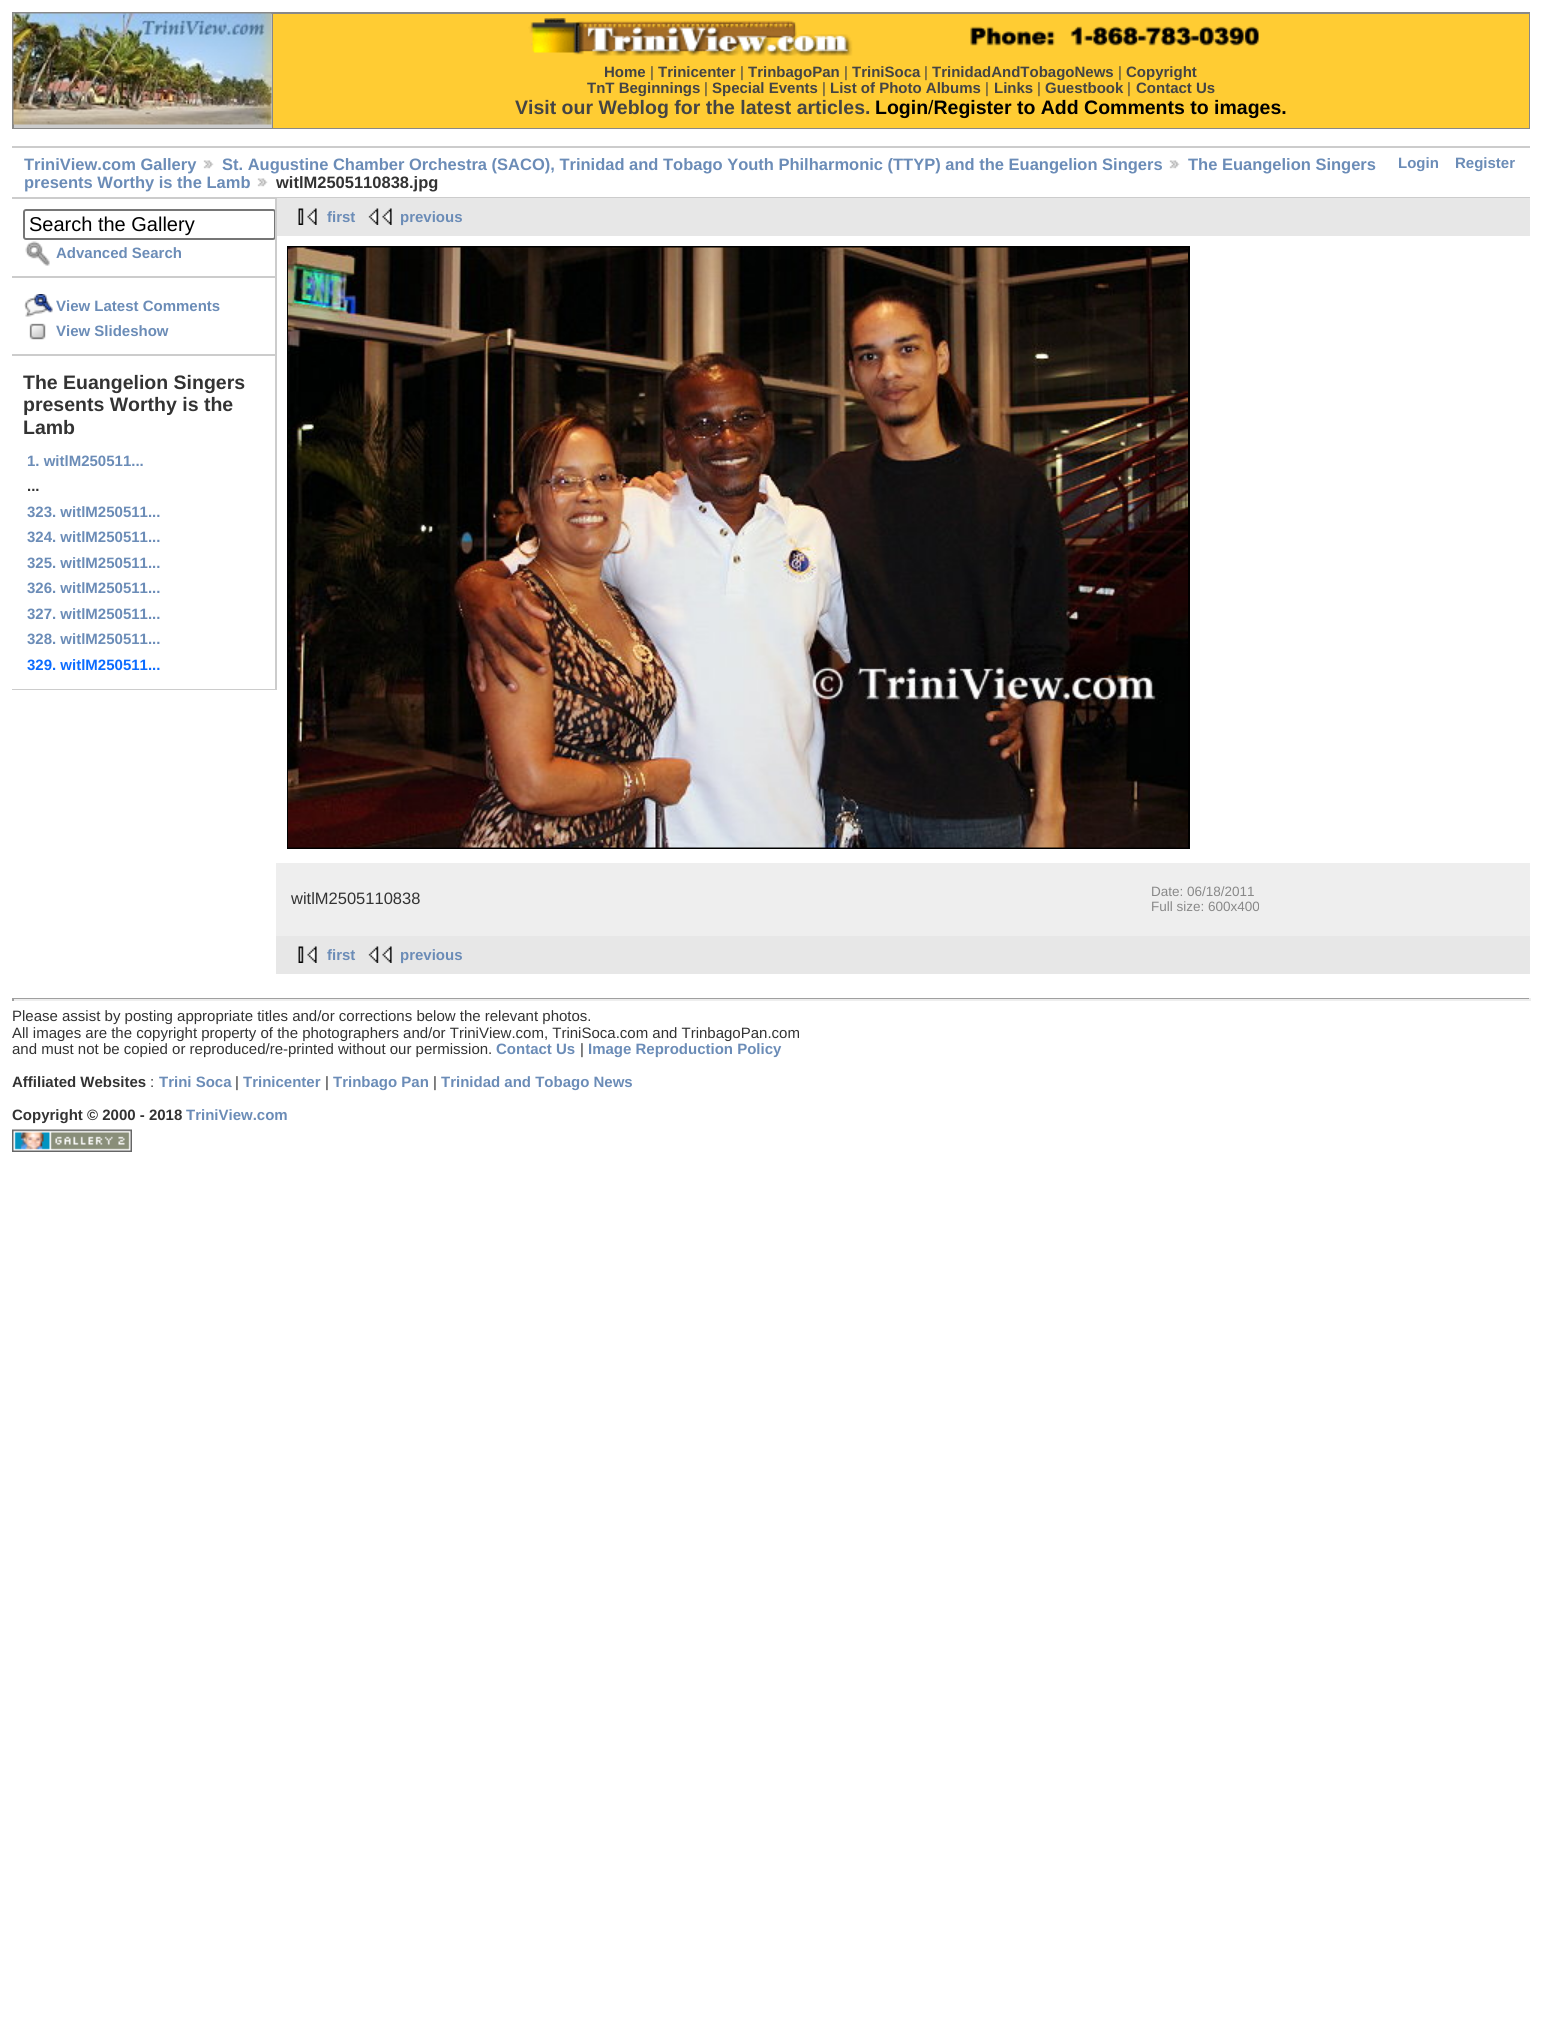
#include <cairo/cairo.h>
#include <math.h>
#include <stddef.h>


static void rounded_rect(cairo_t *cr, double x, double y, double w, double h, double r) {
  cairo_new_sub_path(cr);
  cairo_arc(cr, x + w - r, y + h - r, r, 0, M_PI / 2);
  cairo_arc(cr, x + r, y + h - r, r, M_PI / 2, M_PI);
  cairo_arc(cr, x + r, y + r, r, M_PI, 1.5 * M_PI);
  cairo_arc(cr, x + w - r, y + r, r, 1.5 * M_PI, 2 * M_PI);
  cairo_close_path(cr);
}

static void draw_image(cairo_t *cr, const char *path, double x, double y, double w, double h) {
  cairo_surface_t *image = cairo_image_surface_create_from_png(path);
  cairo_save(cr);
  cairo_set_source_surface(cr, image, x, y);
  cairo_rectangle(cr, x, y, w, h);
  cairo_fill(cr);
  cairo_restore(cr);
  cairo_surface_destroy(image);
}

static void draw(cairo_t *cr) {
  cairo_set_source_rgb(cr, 1, 1, 1);
  cairo_paint(cr);
  cairo_set_source_rgb(cr, 136 / 255.0, 136 / 255.0, 136 / 255.0);
  cairo_rectangle(cr, 12, 12, 1518, 117);
  cairo_fill(cr);
  cairo_set_source_rgb(cr, 204 / 255.0, 204 / 255.0, 204 / 255.0);
  cairo_rectangle(cr, 14, 14, 258, 114);
  cairo_fill(cr);
  draw_image(cr, "images/1.png", 13, 13, 259, 112);
  cairo_set_source_rgb(cr, 1, 204 / 255.0, 51 / 255.0);
  cairo_rectangle(cr, 273, 14, 1256, 114);
  cairo_fill(cr);
  draw_image(cr, "images/2.png", 528, 18, 732, 38);
  cairo_set_source_rgb(cr, 204 / 255.0, 204 / 255.0, 204 / 255.0);
  cairo_rectangle(cr, 12, 146, 1518, 2);
  cairo_fill(cr);
  cairo_rectangle(cr, 12, 197, 1518, 2);
  cairo_fill(cr);
  draw_image(cr, "images/3.png", 203, 160, 11, 9);
  draw_image(cr, "images/4.png", 1169, 160, 11, 9);
  draw_image(cr, "images/3.png", 257, 178, 11, 9);
  cairo_rectangle(cr, 275, 198, 2, 492);
  cairo_fill(cr);
  cairo_rectangle(cr, 12, 276, 263, 2);
  cairo_fill(cr);
  cairo_save(cr);
  cairo_rectangle(cr, 12, 198, 263, 492);
  cairo_clip(cr);
  rounded_rect(cr, 24, 210, 251, 29, 2);
  cairo_set_source_rgb(cr, 118 / 255.0, 118 / 255.0, 118 / 255.0);
  cairo_stroke(cr);
  cairo_restore(cr);
  draw_image(cr, "images/5.png", 25, 241, 25, 25);
  cairo_rectangle(cr, 12, 354, 263, 2);
  cairo_fill(cr);
  draw_image(cr, "images/6.png", 24, 294, 29, 23);
  draw_image(cr, "images/7.png", 29, 323, 17, 17);
  cairo_rectangle(cr, 12, 689, 263, 1);
  cairo_fill(cr);
  cairo_set_source_rgb(cr, 231 / 255.0, 231 / 255.0, 231 / 255.0);
  cairo_rectangle(cr, 277, 198, 1253, 38);
  cairo_fill(cr);
  draw_image(cr, "images/8.png", 298, 208, 19, 17);
  draw_image(cr, "images/9.png", 368, 208, 24, 17);
  cairo_rectangle(cr, 288, 247, 901, 601);
  cairo_set_source_rgb(cr, 0, 0, 0);
  cairo_stroke(cr);
  draw_image(cr, "images/10.png", 288, 247, 900, 601);
  cairo_set_source_rgb(cr, 238 / 255.0, 238 / 255.0, 238 / 255.0);
  cairo_rectangle(cr, 276, 863, 1254, 73);
  cairo_fill(cr);
  cairo_set_source_rgb(cr, 231 / 255.0, 231 / 255.0, 231 / 255.0);
  cairo_rectangle(cr, 276, 936, 1254, 38);
  cairo_fill(cr);
  draw_image(cr, "images/8.png", 298, 946, 19, 17);
  draw_image(cr, "images/9.png", 368, 946, 24, 17);
  cairo_set_source_rgb(cr, 159 / 255.0, 159 / 255.0, 159 / 255.0);
  cairo_rectangle(cr, 12, 998, 1518, 1);
  cairo_fill(cr);
  cairo_set_source_rgb(cr, 238 / 255.0, 238 / 255.0, 238 / 255.0);
  cairo_rectangle(cr, 1529, 998, 2, 3);
  cairo_fill(cr);
  cairo_rectangle(cr, 12, 999, 1518, 2);
  cairo_fill(cr);
  cairo_set_source_rgb(cr, 159 / 255.0, 159 / 255.0, 159 / 255.0);
  cairo_rectangle(cr, 12, 998, 2, 3);
  cairo_fill(cr);
  draw_image(cr, "images/11.png", 12, 1129, 120, 23);
  cairo_select_font_face(cr, "Liberation Sans", CAIRO_FONT_SLANT_NORMAL, CAIRO_FONT_WEIGHT_BOLD);
  cairo_set_font_size(cr, 15);
  cairo_set_source_rgb(cr, 68 / 255.0, 68 / 255.0, 68 / 255.0);
  cairo_move_to(cr, 604, 77);
  cairo_show_text(cr, "Home");
  cairo_select_font_face(cr, "Liberation Sans", CAIRO_FONT_SLANT_NORMAL, CAIRO_FONT_WEIGHT_NORMAL);
  cairo_move_to(cr, 650, 77);
  cairo_show_text(cr, "|");
  cairo_select_font_face(cr, "Liberation Sans", CAIRO_FONT_SLANT_NORMAL, CAIRO_FONT_WEIGHT_BOLD);
  cairo_move_to(cr, 658, 77);
  cairo_show_text(cr, "Trinicenter");
  cairo_select_font_face(cr, "Liberation Sans", CAIRO_FONT_SLANT_NORMAL, CAIRO_FONT_WEIGHT_NORMAL);
  cairo_move_to(cr, 740, 77);
  cairo_show_text(cr, "|");
  cairo_select_font_face(cr, "Liberation Sans", CAIRO_FONT_SLANT_NORMAL, CAIRO_FONT_WEIGHT_BOLD);
  cairo_move_to(cr, 748, 77);
  cairo_show_text(cr, "TrinbagoPan");
  cairo_select_font_face(cr, "Liberation Sans", CAIRO_FONT_SLANT_NORMAL, CAIRO_FONT_WEIGHT_NORMAL);
  cairo_move_to(cr, 844, 77);
  cairo_show_text(cr, "|");
  cairo_select_font_face(cr, "Liberation Sans", CAIRO_FONT_SLANT_NORMAL, CAIRO_FONT_WEIGHT_BOLD);
  cairo_move_to(cr, 852, 77);
  cairo_show_text(cr, "TriniSoca");
  cairo_select_font_face(cr, "Liberation Sans", CAIRO_FONT_SLANT_NORMAL, CAIRO_FONT_WEIGHT_NORMAL);
  cairo_move_to(cr, 924, 77);
  cairo_show_text(cr, "|");
  cairo_select_font_face(cr, "Liberation Sans", CAIRO_FONT_SLANT_NORMAL, CAIRO_FONT_WEIGHT_BOLD);
  cairo_move_to(cr, 932, 77);
  cairo_show_text(cr, "TrinidadAndTobagoNews");
  cairo_select_font_face(cr, "Liberation Sans", CAIRO_FONT_SLANT_NORMAL, CAIRO_FONT_WEIGHT_NORMAL);
  cairo_move_to(cr, 1118, 77);
  cairo_show_text(cr, "|");
  cairo_select_font_face(cr, "Liberation Sans", CAIRO_FONT_SLANT_NORMAL, CAIRO_FONT_WEIGHT_BOLD);
  cairo_move_to(cr, 1126, 77);
  cairo_show_text(cr, "Copyright");
  cairo_move_to(cr, 587, 93);
  cairo_show_text(cr, "TnT Beginnings");
  cairo_select_font_face(cr, "Liberation Sans", CAIRO_FONT_SLANT_NORMAL, CAIRO_FONT_WEIGHT_NORMAL);
  cairo_move_to(cr, 704, 93);
  cairo_show_text(cr, "|");
  cairo_select_font_face(cr, "Liberation Sans", CAIRO_FONT_SLANT_NORMAL, CAIRO_FONT_WEIGHT_BOLD);
  cairo_move_to(cr, 712, 93);
  cairo_show_text(cr, "Special Events");
  cairo_select_font_face(cr, "Liberation Sans", CAIRO_FONT_SLANT_NORMAL, CAIRO_FONT_WEIGHT_NORMAL);
  cairo_move_to(cr, 822, 93);
  cairo_show_text(cr, "|");
  cairo_select_font_face(cr, "Liberation Sans", CAIRO_FONT_SLANT_NORMAL, CAIRO_FONT_WEIGHT_BOLD);
  cairo_move_to(cr, 830, 93);
  cairo_show_text(cr, "List of Photo Albums");
  cairo_select_font_face(cr, "Liberation Sans", CAIRO_FONT_SLANT_NORMAL, CAIRO_FONT_WEIGHT_NORMAL);
  cairo_move_to(cr, 985, 93);
  cairo_show_text(cr, "|");
  cairo_select_font_face(cr, "Liberation Sans", CAIRO_FONT_SLANT_NORMAL, CAIRO_FONT_WEIGHT_BOLD);
  cairo_move_to(cr, 994, 93);
  cairo_show_text(cr, "Links");
  cairo_select_font_face(cr, "Liberation Sans", CAIRO_FONT_SLANT_NORMAL, CAIRO_FONT_WEIGHT_NORMAL);
  cairo_move_to(cr, 1037, 93);
  cairo_show_text(cr, "|");
  cairo_select_font_face(cr, "Liberation Sans", CAIRO_FONT_SLANT_NORMAL, CAIRO_FONT_WEIGHT_BOLD);
  cairo_move_to(cr, 1045, 93);
  cairo_show_text(cr, "Guestbook");
  cairo_select_font_face(cr, "Liberation Sans", CAIRO_FONT_SLANT_NORMAL, CAIRO_FONT_WEIGHT_NORMAL);
  cairo_move_to(cr, 1127, 93);
  cairo_show_text(cr, "|");
  cairo_select_font_face(cr, "Liberation Sans", CAIRO_FONT_SLANT_NORMAL, CAIRO_FONT_WEIGHT_BOLD);
  cairo_move_to(cr, 1136, 93);
  cairo_show_text(cr, "Contact Us");
  cairo_set_font_size(cr, 19.5);
  cairo_move_to(cr, 515, 114);
  cairo_show_text(cr, "Visit our Weblog for the latest articles.");
  cairo_set_source_rgb(cr, 0, 0, 0);
  cairo_move_to(cr, 875, 114);
  cairo_show_text(cr, "Login Register to Add Comments to images.");
  cairo_select_font_face(cr, "Liberation Sans", CAIRO_FONT_SLANT_NORMAL, CAIRO_FONT_WEIGHT_NORMAL);
  cairo_move_to(cr, 928, 114);
  cairo_show_text(cr, "/");
  cairo_select_font_face(cr, "Liberation Sans", CAIRO_FONT_SLANT_NORMAL, CAIRO_FONT_WEIGHT_BOLD);
  cairo_set_font_size(cr, 16.5);
  cairo_set_source_rgb(cr, 107 / 255.0, 140 / 255.0, 183 / 255.0);
  cairo_move_to(cr, 24, 170);
  cairo_show_text(cr, "TriniView.com Gallery");
  cairo_move_to(cr, 222, 170);
  cairo_show_text(cr, "St. Augustine Chamber Orchestra (SACO), Trinidad and Tobago Youth Philharmonic (TTYP) and the Euangelion Singers");
  cairo_move_to(cr, 1188, 170);
  cairo_show_text(cr, "The Euangelion Singers");
  cairo_move_to(cr, 24, 188);
  cairo_show_text(cr, "presents Worthy is the Lamb");
  cairo_set_source_rgb(cr, 51 / 255.0, 51 / 255.0, 51 / 255.0);
  cairo_move_to(cr, 276, 188);
  cairo_show_text(cr, "witlM2505110838.jpg");
  cairo_set_font_size(cr, 15);
  cairo_set_source_rgb(cr, 107 / 255.0, 140 / 255.0, 183 / 255.0);
  cairo_move_to(cr, 1398, 168);
  cairo_show_text(cr, "Login");
  cairo_move_to(cr, 1455, 168);
  cairo_show_text(cr, "Register");
  cairo_select_font_face(cr, "Liberation Sans", CAIRO_FONT_SLANT_NORMAL, CAIRO_FONT_WEIGHT_NORMAL);
  cairo_set_font_size(cr, 20);
  cairo_set_source_rgb(cr, 0, 0, 0);
  cairo_move_to(cr, 29, 231);
  cairo_show_text(cr, "Search the Gallery");
  cairo_select_font_face(cr, "Liberation Sans", CAIRO_FONT_SLANT_NORMAL, CAIRO_FONT_WEIGHT_BOLD);
  cairo_set_font_size(cr, 15);
  cairo_set_source_rgb(cr, 107 / 255.0, 140 / 255.0, 183 / 255.0);
  cairo_move_to(cr, 56, 258);
  cairo_show_text(cr, "Advanced Search");
  cairo_move_to(cr, 56, 311);
  cairo_show_text(cr, "View Latest Comments");
  cairo_move_to(cr, 56, 336);
  cairo_show_text(cr, "View Slideshow");
  cairo_set_font_size(cr, 19.5);
  cairo_set_source_rgb(cr, 51 / 255.0, 51 / 255.0, 51 / 255.0);
  cairo_move_to(cr, 23, 389);
  cairo_show_text(cr, "The Euangelion Singers");
  cairo_move_to(cr, 23, 411);
  cairo_show_text(cr, "presents Worthy is the");
  cairo_move_to(cr, 23, 434);
  cairo_show_text(cr, "Lamb");
  cairo_set_font_size(cr, 15);
  cairo_set_source_rgb(cr, 107 / 255.0, 140 / 255.0, 183 / 255.0);
  cairo_move_to(cr, 27, 466);
  cairo_show_text(cr, "1. witlM250511...");
  cairo_set_source_rgb(cr, 51 / 255.0, 51 / 255.0, 51 / 255.0);
  cairo_move_to(cr, 27, 491);
  cairo_show_text(cr, "...");
  cairo_set_source_rgb(cr, 107 / 255.0, 140 / 255.0, 183 / 255.0);
  cairo_move_to(cr, 27, 517);
  cairo_show_text(cr, "323. witlM250511...");
  cairo_move_to(cr, 27, 542);
  cairo_show_text(cr, "324. witlM250511...");
  cairo_move_to(cr, 27, 568);
  cairo_show_text(cr, "325. witlM250511...");
  cairo_move_to(cr, 27, 593);
  cairo_show_text(cr, "326. witlM250511...");
  cairo_move_to(cr, 27, 619);
  cairo_show_text(cr, "327. witlM250511...");
  cairo_move_to(cr, 27, 644);
  cairo_show_text(cr, "328. witlM250511...");
  cairo_set_source_rgb(cr, 11 / 255.0, 108 / 255.0, 1);
  cairo_move_to(cr, 27, 670);
  cairo_show_text(cr, "329. witlM250511...");
  cairo_set_source_rgb(cr, 107 / 255.0, 140 / 255.0, 183 / 255.0);
  cairo_move_to(cr, 327, 222);
  cairo_show_text(cr, "first");
  cairo_move_to(cr, 400, 222);
  cairo_show_text(cr, "previous");
  cairo_select_font_face(cr, "Liberation Sans", CAIRO_FONT_SLANT_NORMAL, CAIRO_FONT_WEIGHT_NORMAL);
  cairo_set_font_size(cr, 16.5);
  cairo_set_source_rgb(cr, 51 / 255.0, 51 / 255.0, 51 / 255.0);
  cairo_move_to(cr, 291, 904);
  cairo_show_text(cr, "witlM2505110838");
  cairo_set_font_size(cr, 13.5);
  cairo_set_source_rgb(cr, 136 / 255.0, 136 / 255.0, 136 / 255.0);
  cairo_move_to(cr, 1151, 896);
  cairo_show_text(cr, "Date: 06/18/2011");
  cairo_move_to(cr, 1151, 911);
  cairo_show_text(cr, "Full size: 600x400");
  cairo_select_font_face(cr, "Liberation Sans", CAIRO_FONT_SLANT_NORMAL, CAIRO_FONT_WEIGHT_BOLD);
  cairo_set_font_size(cr, 15);
  cairo_set_source_rgb(cr, 107 / 255.0, 140 / 255.0, 183 / 255.0);
  cairo_move_to(cr, 327, 960);
  cairo_show_text(cr, "first");
  cairo_move_to(cr, 400, 960);
  cairo_show_text(cr, "previous");
  cairo_select_font_face(cr, "Liberation Sans", CAIRO_FONT_SLANT_NORMAL, CAIRO_FONT_WEIGHT_NORMAL);
  cairo_set_source_rgb(cr, 51 / 255.0, 51 / 255.0, 51 / 255.0);
  cairo_move_to(cr, 12, 1021);
  cairo_show_text(cr, "Please assist by posting appropriate titles and/or corrections below the relevant photos.");
  cairo_move_to(cr, 12, 1038);
  cairo_show_text(cr, "All images are the copyright property of the photographers and/or TriniView.com, TriniSoca.com and TrinbagoPan.com");
  cairo_move_to(cr, 12, 1054);
  cairo_show_text(cr, "and must not be copied or reproduced/re-printed without our permission.");
  cairo_select_font_face(cr, "Liberation Sans", CAIRO_FONT_SLANT_NORMAL, CAIRO_FONT_WEIGHT_BOLD);
  cairo_set_source_rgb(cr, 107 / 255.0, 140 / 255.0, 183 / 255.0);
  cairo_move_to(cr, 496, 1054);
  cairo_show_text(cr, "Contact Us");
  cairo_select_font_face(cr, "Liberation Sans", CAIRO_FONT_SLANT_NORMAL, CAIRO_FONT_WEIGHT_NORMAL);
  cairo_set_source_rgb(cr, 51 / 255.0, 51 / 255.0, 51 / 255.0);
  cairo_move_to(cr, 580, 1054);
  cairo_show_text(cr, "|");
  cairo_select_font_face(cr, "Liberation Sans", CAIRO_FONT_SLANT_NORMAL, CAIRO_FONT_WEIGHT_BOLD);
  cairo_set_source_rgb(cr, 107 / 255.0, 140 / 255.0, 183 / 255.0);
  cairo_move_to(cr, 588, 1054);
  cairo_show_text(cr, "Image Reproduction Policy");
  cairo_set_source_rgb(cr, 51 / 255.0, 51 / 255.0, 51 / 255.0);
  cairo_move_to(cr, 12, 1087);
  cairo_show_text(cr, "Affiliated Websites");
  cairo_select_font_face(cr, "Liberation Sans", CAIRO_FONT_SLANT_NORMAL, CAIRO_FONT_WEIGHT_NORMAL);
  cairo_move_to(cr, 150, 1087);
  cairo_show_text(cr, ":");
  cairo_select_font_face(cr, "Liberation Sans", CAIRO_FONT_SLANT_NORMAL, CAIRO_FONT_WEIGHT_BOLD);
  cairo_set_source_rgb(cr, 107 / 255.0, 140 / 255.0, 183 / 255.0);
  cairo_move_to(cr, 159, 1087);
  cairo_show_text(cr, "Trini Soca");
  cairo_select_font_face(cr, "Liberation Sans", CAIRO_FONT_SLANT_NORMAL, CAIRO_FONT_WEIGHT_NORMAL);
  cairo_set_source_rgb(cr, 51 / 255.0, 51 / 255.0, 51 / 255.0);
  cairo_move_to(cr, 235, 1087);
  cairo_show_text(cr, "|");
  cairo_select_font_face(cr, "Liberation Sans", CAIRO_FONT_SLANT_NORMAL, CAIRO_FONT_WEIGHT_BOLD);
  cairo_set_source_rgb(cr, 107 / 255.0, 140 / 255.0, 183 / 255.0);
  cairo_move_to(cr, 243, 1087);
  cairo_show_text(cr, "Trinicenter");
  cairo_select_font_face(cr, "Liberation Sans", CAIRO_FONT_SLANT_NORMAL, CAIRO_FONT_WEIGHT_NORMAL);
  cairo_set_source_rgb(cr, 51 / 255.0, 51 / 255.0, 51 / 255.0);
  cairo_move_to(cr, 325, 1087);
  cairo_show_text(cr, "|");
  cairo_select_font_face(cr, "Liberation Sans", CAIRO_FONT_SLANT_NORMAL, CAIRO_FONT_WEIGHT_BOLD);
  cairo_set_source_rgb(cr, 107 / 255.0, 140 / 255.0, 183 / 255.0);
  cairo_move_to(cr, 333, 1087);
  cairo_show_text(cr, "Trinbago Pan");
  cairo_select_font_face(cr, "Liberation Sans", CAIRO_FONT_SLANT_NORMAL, CAIRO_FONT_WEIGHT_NORMAL);
  cairo_set_source_rgb(cr, 51 / 255.0, 51 / 255.0, 51 / 255.0);
  cairo_move_to(cr, 433, 1087);
  cairo_show_text(cr, "|");
  cairo_select_font_face(cr, "Liberation Sans", CAIRO_FONT_SLANT_NORMAL, CAIRO_FONT_WEIGHT_BOLD);
  cairo_set_source_rgb(cr, 107 / 255.0, 140 / 255.0, 183 / 255.0);
  cairo_move_to(cr, 441, 1087);
  cairo_show_text(cr, "Trinidad and Tobago News");
  cairo_set_source_rgb(cr, 51 / 255.0, 51 / 255.0, 51 / 255.0);
  cairo_move_to(cr, 12, 1120);
  cairo_show_text(cr, "Copyright © 2000 - 2018");
  cairo_set_source_rgb(cr, 107 / 255.0, 140 / 255.0, 183 / 255.0);
  cairo_move_to(cr, 186, 1120);
  cairo_show_text(cr, "TriniView.com");
}

int main(void) {
  cairo_surface_t *surface = cairo_image_surface_create(CAIRO_FORMAT_RGB24, 1542, 2024);
  cairo_t *cr = cairo_create(surface);
  cairo_font_options_t *options = cairo_font_options_create();
  cairo_font_options_set_hint_metrics(options, CAIRO_HINT_METRICS_OFF);
  cairo_font_options_set_hint_style(options, CAIRO_HINT_STYLE_NONE);
  cairo_set_font_options(cr, options);
  cairo_set_miter_limit(cr, 4);
  draw(cr);
  cairo_surface_write_to_png(surface, "out.png");
  cairo_font_options_destroy(options);
  cairo_destroy(cr);
  cairo_surface_destroy(surface);
  return 0;
}
